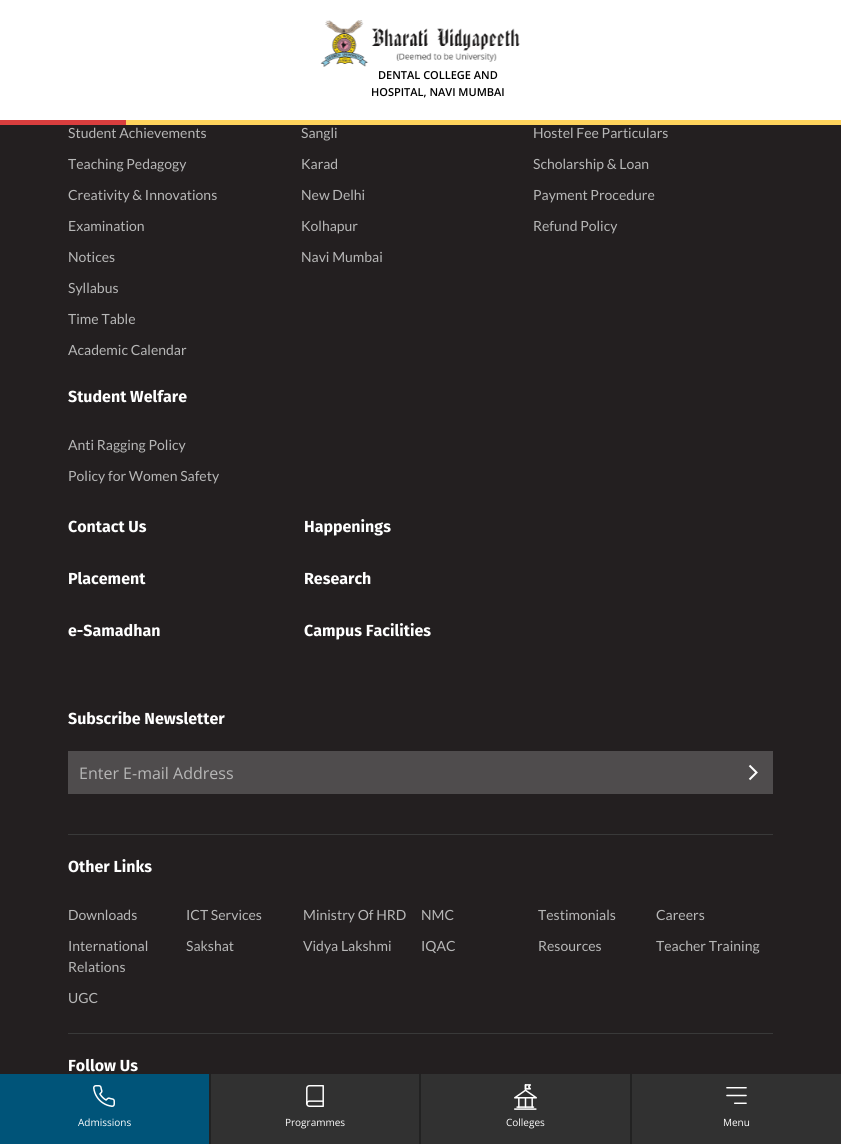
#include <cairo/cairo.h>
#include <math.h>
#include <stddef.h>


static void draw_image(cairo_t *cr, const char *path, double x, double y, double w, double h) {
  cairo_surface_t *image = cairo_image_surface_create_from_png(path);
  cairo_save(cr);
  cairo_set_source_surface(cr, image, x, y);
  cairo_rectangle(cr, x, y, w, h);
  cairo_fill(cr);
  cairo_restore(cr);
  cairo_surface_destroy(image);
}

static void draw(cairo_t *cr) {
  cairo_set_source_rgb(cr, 35 / 255.0, 31 / 255.0, 32 / 255.0);
  cairo_paint(cr);
  cairo_set_source_rgb(cr, 1, 1, 1);
  cairo_rectangle(cr, 0, 0, 841, 120);
  cairo_fill(cr);
  draw_image(cr, "images/1.png", 320, 20, 200, 47);
  cairo_set_source_rgb(cr, 217 / 255.0, 62 / 255.0, 62 / 255.0);
  cairo_rectangle(cr, 0, 120, 126, 5);
  cairo_fill(cr);
  cairo_set_source_rgb(cr, 1, 211 / 255.0, 92 / 255.0);
  cairo_rectangle(cr, 126, 120, 715, 5);
  cairo_fill(cr);
  cairo_set_source_rgb(cr, 79 / 255.0, 76 / 255.0, 77 / 255.0);
  cairo_rectangle(cr, 68.5, 751.5, 704, 42);
  cairo_fill_preserve(cr);
  cairo_set_line_width(cr, 1);
  cairo_stroke(cr);
  cairo_new_path(cr);
  cairo_move_to(cr, 749.5, 765.5);
  cairo_line_to(cr, 756.5, 772.5);
  cairo_line_to(cr, 749.5, 779.5);
  cairo_set_source_rgb(cr, 1, 1, 1);
  cairo_set_line_width(cr, 2);
  cairo_stroke(cr);
  cairo_set_source_rgb(cr, 57 / 255.0, 57 / 255.0, 57 / 255.0);
  cairo_rectangle(cr, 68, 834, 705, 1);
  cairo_fill(cr);
  cairo_rectangle(cr, 68, 1033, 705, 1);
  cairo_fill(cr);
  cairo_set_source_rgb(cr, 0, 84 / 255.0, 121 / 255.0);
  cairo_rectangle(cr, 0, 1074, 209, 70);
  cairo_fill(cr);
  cairo_set_source_rgb(cr, 34 / 255.0, 34 / 255.0, 34 / 255.0);
  cairo_rectangle(cr, 209, 1074, 2, 70);
  cairo_fill(cr);
  draw_image(cr, "images/2.png", 93, 1085, 22, 22);
  cairo_set_source_rgb(cr, 49 / 255.0, 49 / 255.0, 49 / 255.0);
  cairo_rectangle(cr, 211, 1074, 208, 70);
  cairo_fill(cr);
  cairo_set_source_rgb(cr, 34 / 255.0, 34 / 255.0, 34 / 255.0);
  cairo_rectangle(cr, 419, 1074, 2, 70);
  cairo_fill(cr);
  draw_image(cr, "images/3.png", 306, 1085, 18, 22);
  cairo_set_source_rgb(cr, 49 / 255.0, 49 / 255.0, 49 / 255.0);
  cairo_rectangle(cr, 421, 1074, 209, 70);
  cairo_fill(cr);
  cairo_set_source_rgb(cr, 34 / 255.0, 34 / 255.0, 34 / 255.0);
  cairo_rectangle(cr, 630, 1074, 2, 70);
  cairo_fill(cr);
  draw_image(cr, "images/4.png", 514, 1084, 23, 26);
  cairo_set_source_rgb(cr, 49 / 255.0, 49 / 255.0, 49 / 255.0);
  cairo_rectangle(cr, 632, 1074, 209, 70);
  cairo_fill(cr);
  draw_image(cr, "images/5.png", 726, 1087, 21, 17);
  cairo_select_font_face(cr, "Open Sans SemiBold", CAIRO_FONT_SLANT_NORMAL, CAIRO_FONT_WEIGHT_NORMAL);
  cairo_set_font_size(cr, 11);
  cairo_set_source_rgb(cr, 0, 0, 0);
  cairo_move_to(cr, 378, 79);
  cairo_show_text(cr, "DENTAL COLLEGE AND");
  cairo_move_to(cr, 371, 96);
  cairo_show_text(cr, "HOSPITAL, NAVI MUMBAI");
  cairo_select_font_face(cr, "Lato", CAIRO_FONT_SLANT_NORMAL, CAIRO_FONT_WEIGHT_NORMAL);
  cairo_set_font_size(cr, 14);
  cairo_set_source_rgb(cr, 183 / 255.0, 183 / 255.0, 183 / 255.0);
  cairo_move_to(cr, 68, 138);
  cairo_show_text(cr, "Student Achievements");
  cairo_move_to(cr, 68, 169);
  cairo_show_text(cr, "Teaching Pedagogy");
  cairo_move_to(cr, 68, 200);
  cairo_show_text(cr, "Creativity & Innovations");
  cairo_move_to(cr, 68, 231);
  cairo_show_text(cr, "Examination");
  cairo_move_to(cr, 68, 262);
  cairo_show_text(cr, "Notices");
  cairo_move_to(cr, 68, 293);
  cairo_show_text(cr, "Syllabus");
  cairo_move_to(cr, 68, 324);
  cairo_show_text(cr, "Time Table");
  cairo_move_to(cr, 68, 355);
  cairo_show_text(cr, "Academic Calendar");
  cairo_move_to(cr, 301, 138);
  cairo_show_text(cr, "Sangli");
  cairo_move_to(cr, 301, 169);
  cairo_show_text(cr, "Karad");
  cairo_move_to(cr, 301, 200);
  cairo_show_text(cr, "New Delhi");
  cairo_move_to(cr, 301, 231);
  cairo_show_text(cr, "Kolhapur");
  cairo_move_to(cr, 301, 262);
  cairo_show_text(cr, "Navi Mumbai");
  cairo_move_to(cr, 533, 138);
  cairo_show_text(cr, "Hostel Fee Particulars");
  cairo_move_to(cr, 533, 169);
  cairo_show_text(cr, "Scholarship & Loan");
  cairo_move_to(cr, 533, 200);
  cairo_show_text(cr, "Payment Procedure");
  cairo_move_to(cr, 533, 231);
  cairo_show_text(cr, "Refund Policy");
  cairo_select_font_face(cr, "Fira Sans", CAIRO_FONT_SLANT_NORMAL, CAIRO_FONT_WEIGHT_BOLD);
  cairo_set_font_size(cr, 16);
  cairo_set_source_rgb(cr, 1, 1, 1);
  cairo_move_to(cr, 68, 402);
  cairo_show_text(cr, "Student Welfare");
  cairo_select_font_face(cr, "Lato", CAIRO_FONT_SLANT_NORMAL, CAIRO_FONT_WEIGHT_NORMAL);
  cairo_set_font_size(cr, 14);
  cairo_set_source_rgb(cr, 183 / 255.0, 183 / 255.0, 183 / 255.0);
  cairo_move_to(cr, 68, 450);
  cairo_show_text(cr, "Anti Ragging Policy");
  cairo_move_to(cr, 68, 481);
  cairo_show_text(cr, "Policy for Women Safety");
  cairo_select_font_face(cr, "Fira Sans", CAIRO_FONT_SLANT_NORMAL, CAIRO_FONT_WEIGHT_BOLD);
  cairo_set_font_size(cr, 16);
  cairo_set_source_rgb(cr, 1, 1, 1);
  cairo_move_to(cr, 68, 532);
  cairo_show_text(cr, "Contact Us");
  cairo_move_to(cr, 304, 532);
  cairo_show_text(cr, "Happenings");
  cairo_move_to(cr, 68, 584);
  cairo_show_text(cr, "Placement");
  cairo_move_to(cr, 304, 584);
  cairo_show_text(cr, "Research");
  cairo_move_to(cr, 68, 636);
  cairo_show_text(cr, "e-Samadhan");
  cairo_move_to(cr, 304, 636);
  cairo_show_text(cr, "Campus Facilities");
  cairo_move_to(cr, 68, 724);
  cairo_show_text(cr, "Subscribe Newsletter");
  cairo_select_font_face(cr, "Open Sans", CAIRO_FONT_SLANT_NORMAL, CAIRO_FONT_WEIGHT_NORMAL);
  cairo_set_source_rgb(cr, 183 / 255.0, 183 / 255.0, 183 / 255.0);
  cairo_move_to(cr, 79, 779);
  cairo_show_text(cr, "Enter E-mail Address");
  cairo_select_font_face(cr, "Fira Sans", CAIRO_FONT_SLANT_NORMAL, CAIRO_FONT_WEIGHT_BOLD);
  cairo_set_source_rgb(cr, 1, 1, 1);
  cairo_move_to(cr, 68, 872);
  cairo_show_text(cr, "Other Links");
  cairo_select_font_face(cr, "Lato", CAIRO_FONT_SLANT_NORMAL, CAIRO_FONT_WEIGHT_NORMAL);
  cairo_set_font_size(cr, 14);
  cairo_set_source_rgb(cr, 183 / 255.0, 183 / 255.0, 183 / 255.0);
  cairo_move_to(cr, 68, 920);
  cairo_show_text(cr, "Downloads");
  cairo_move_to(cr, 186, 920);
  cairo_show_text(cr, "ICT Services");
  cairo_move_to(cr, 303, 920);
  cairo_show_text(cr, "Ministry Of HRD");
  cairo_move_to(cr, 421, 920);
  cairo_show_text(cr, "NMC");
  cairo_move_to(cr, 538, 920);
  cairo_show_text(cr, "Testimonials");
  cairo_move_to(cr, 656, 920);
  cairo_show_text(cr, "Careers");
  cairo_move_to(cr, 68, 951);
  cairo_show_text(cr, "International");
  cairo_move_to(cr, 68, 972);
  cairo_show_text(cr, "Relations");
  cairo_move_to(cr, 186, 951);
  cairo_show_text(cr, "Sakshat");
  cairo_move_to(cr, 303, 951);
  cairo_show_text(cr, "Vidya Lakshmi");
  cairo_move_to(cr, 421, 951);
  cairo_show_text(cr, "IQAC");
  cairo_move_to(cr, 538, 951);
  cairo_show_text(cr, "Resources");
  cairo_move_to(cr, 656, 951);
  cairo_show_text(cr, "Teacher Training");
  cairo_move_to(cr, 68, 1003);
  cairo_show_text(cr, "UGC");
  cairo_select_font_face(cr, "Fira Sans", CAIRO_FONT_SLANT_NORMAL, CAIRO_FONT_WEIGHT_BOLD);
  cairo_set_font_size(cr, 16);
  cairo_set_source_rgb(cr, 1, 1, 1);
  cairo_move_to(cr, 68, 1071);
  cairo_show_text(cr, "Follow Us");
  cairo_select_font_face(cr, "Open Sans", CAIRO_FONT_SLANT_NORMAL, CAIRO_FONT_WEIGHT_NORMAL);
  cairo_set_font_size(cr, 10);
  cairo_move_to(cr, 78, 1126);
  cairo_show_text(cr, "Admissions");
  cairo_move_to(cr, 285, 1126);
  cairo_show_text(cr, "Programmes");
  cairo_move_to(cr, 506, 1126);
  cairo_show_text(cr, "Colleges");
  cairo_move_to(cr, 723, 1126);
  cairo_show_text(cr, "Menu");
}

int main(void) {
  cairo_surface_t *surface = cairo_image_surface_create(CAIRO_FORMAT_RGB24, 841, 1144);
  cairo_t *cr = cairo_create(surface);
  cairo_font_options_t *options = cairo_font_options_create();
  cairo_font_options_set_hint_metrics(options, CAIRO_HINT_METRICS_OFF);
  cairo_font_options_set_hint_style(options, CAIRO_HINT_STYLE_NONE);
  cairo_set_font_options(cr, options);
  cairo_set_miter_limit(cr, 4);
  draw(cr);
  cairo_surface_write_to_png(surface, "out.png");
  cairo_font_options_destroy(options);
  cairo_destroy(cr);
  cairo_surface_destroy(surface);
  return 0;
}
